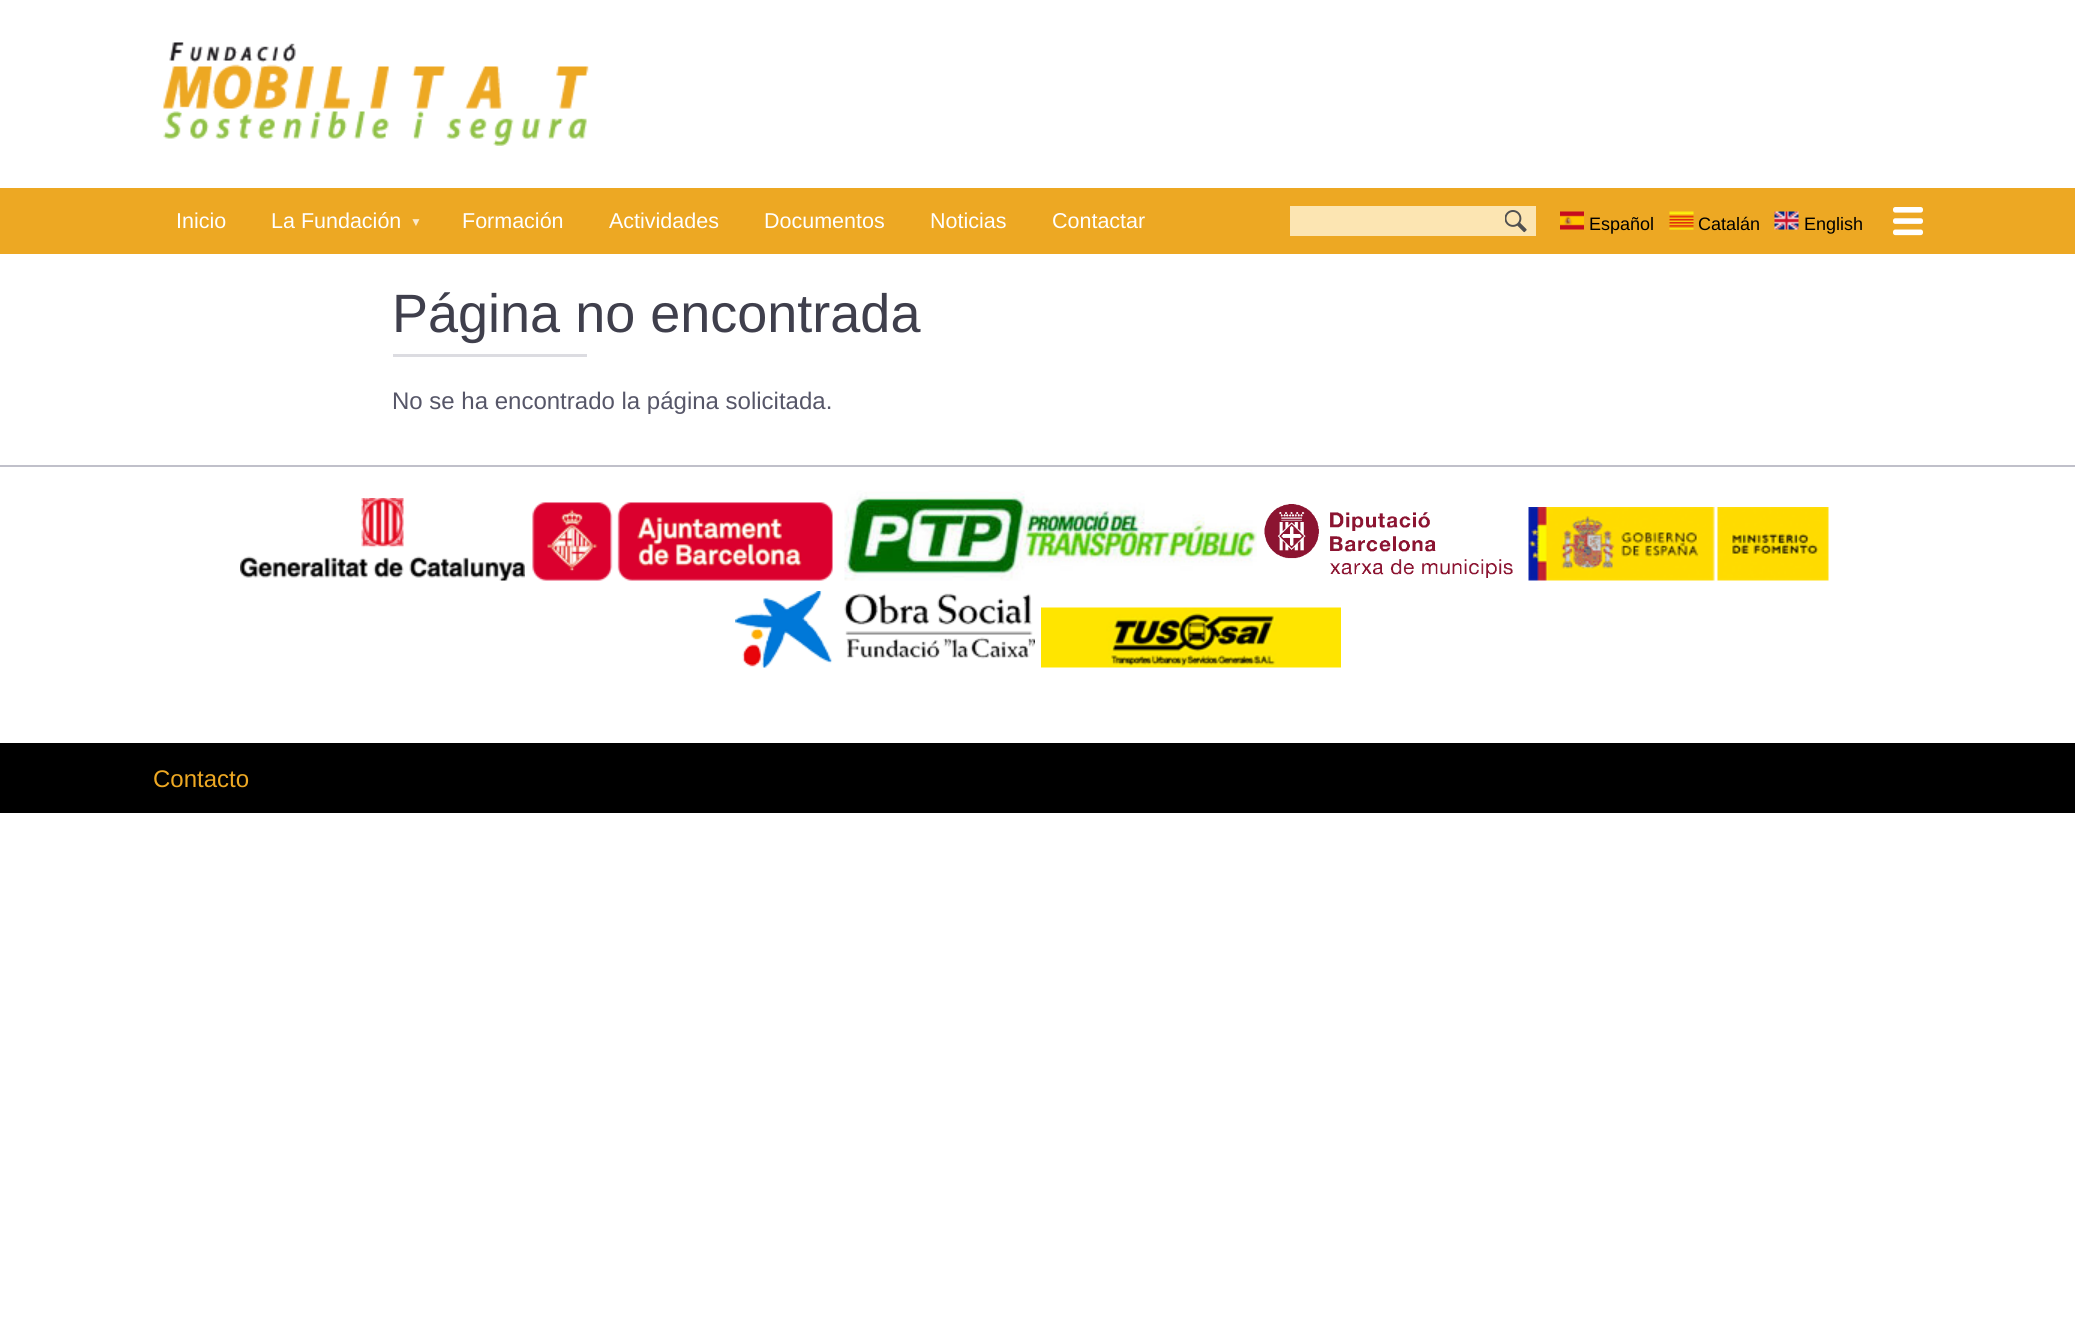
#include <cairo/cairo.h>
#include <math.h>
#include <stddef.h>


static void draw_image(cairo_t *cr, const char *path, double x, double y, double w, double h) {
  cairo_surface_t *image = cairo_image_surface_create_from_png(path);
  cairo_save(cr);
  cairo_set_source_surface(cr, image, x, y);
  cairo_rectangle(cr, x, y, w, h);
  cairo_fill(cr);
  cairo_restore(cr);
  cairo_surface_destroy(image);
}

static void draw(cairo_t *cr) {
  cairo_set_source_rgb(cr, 1, 1, 1);
  cairo_paint(cr);
  draw_image(cr, "images/1.png", 163, 42, 426, 104);
  cairo_set_source_rgb(cr, 237 / 255.0, 168 / 255.0, 35 / 255.0);
  cairo_rectangle(cr, 0, 188, 2075, 66);
  cairo_fill(cr);
  cairo_set_source_rgb(cr, 252 / 255.0, 229 / 255.0, 178 / 255.0);
  cairo_rectangle(cr, 1290, 206, 246, 30);
  cairo_fill(cr);
  draw_image(cr, "images/2.png", 1505, 210, 22, 23);
  draw_image(cr, "images/3.png", 1560, 211, 24, 19);
  draw_image(cr, "images/4.png", 1669, 211, 25, 19);
  draw_image(cr, "images/5.png", 1774, 211, 25, 19);
  draw_image(cr, "images/6.png", 1893, 207, 30, 29);
  cairo_set_source_rgb(cr, 220 / 255.0, 220 / 255.0, 225 / 255.0);
  cairo_rectangle(cr, 393, 354, 194, 3);
  cairo_fill(cr);
  cairo_set_source_rgb(cr, 192 / 255.0, 192 / 255.0, 202 / 255.0);
  cairo_rectangle(cr, 0, 465, 2075, 2);
  cairo_fill(cr);
  draw_image(cr, "images/7.png", 240, 498, 285, 83);
  draw_image(cr, "images/8.png", 532, 502, 301, 79);
  draw_image(cr, "images/9.png", 844, 490, 413, 91);
  draw_image(cr, "images/10.png", 1264, 504, 249, 74);
  draw_image(cr, "images/11.png", 1528, 507, 301, 74);
  draw_image(cr, "images/12.png", 735, 591, 300, 77);
  draw_image(cr, "images/13.png", 1041, 607, 300, 61);
  cairo_set_source_rgb(cr, 0, 0, 0);
  cairo_rectangle(cr, 0, 743, 2075, 70);
  cairo_fill(cr);
  cairo_select_font_face(cr, "Liberation Sans", CAIRO_FONT_SLANT_NORMAL, CAIRO_FONT_WEIGHT_NORMAL);
  cairo_set_font_size(cr, 21.5);
  cairo_set_source_rgb(cr, 1, 1, 1);
  cairo_move_to(cr, 176, 228);
  cairo_show_text(cr, "Inicio");
  cairo_move_to(cr, 271, 228);
  cairo_show_text(cr, "La Fundación");
  cairo_set_font_size(cr, 12);
  cairo_set_source_rgb(cr, 251 / 255.0, 233 / 255.0, 200 / 255.0);
  cairo_move_to(cr, 410, 226);
  cairo_show_text(cr, "▼");
  cairo_set_font_size(cr, 21.5);
  cairo_set_source_rgb(cr, 1, 1, 1);
  cairo_move_to(cr, 462, 228);
  cairo_show_text(cr, "Formación");
  cairo_move_to(cr, 609, 228);
  cairo_show_text(cr, "Actividades");
  cairo_move_to(cr, 764, 228);
  cairo_show_text(cr, "Documentos");
  cairo_move_to(cr, 930, 228);
  cairo_show_text(cr, "Noticias");
  cairo_move_to(cr, 1052, 228);
  cairo_show_text(cr, "Contactar");
  cairo_set_font_size(cr, 18);
  cairo_set_source_rgb(cr, 0, 0, 0);
  cairo_move_to(cr, 1589, 230);
  cairo_show_text(cr, "Español");
  cairo_move_to(cr, 1698, 230);
  cairo_show_text(cr, "Catalán");
  cairo_move_to(cr, 1804, 230);
  cairo_show_text(cr, "English");
  cairo_set_font_size(cr, 54);
  cairo_set_source_rgb(cr, 63 / 255.0, 63 / 255.0, 76 / 255.0);
  cairo_move_to(cr, 392, 332);
  cairo_show_text(cr, "Página no encontrada");
  cairo_set_font_size(cr, 24);
  cairo_set_source_rgb(cr, 86 / 255.0, 86 / 255.0, 104 / 255.0);
  cairo_move_to(cr, 392, 409);
  cairo_show_text(cr, "No se ha encontrado la página solicitada.");
  cairo_set_source_rgb(cr, 237 / 255.0, 168 / 255.0, 35 / 255.0);
  cairo_move_to(cr, 153, 787);
  cairo_show_text(cr, "Contacto");
}

int main(void) {
  cairo_surface_t *surface = cairo_image_surface_create(CAIRO_FORMAT_RGB24, 2075, 1338);
  cairo_t *cr = cairo_create(surface);
  cairo_font_options_t *options = cairo_font_options_create();
  cairo_font_options_set_hint_metrics(options, CAIRO_HINT_METRICS_OFF);
  cairo_font_options_set_hint_style(options, CAIRO_HINT_STYLE_NONE);
  cairo_set_font_options(cr, options);
  cairo_set_miter_limit(cr, 4);
  draw(cr);
  cairo_surface_write_to_png(surface, "out.png");
  cairo_font_options_destroy(options);
  cairo_destroy(cr);
  cairo_surface_destroy(surface);
  return 0;
}
